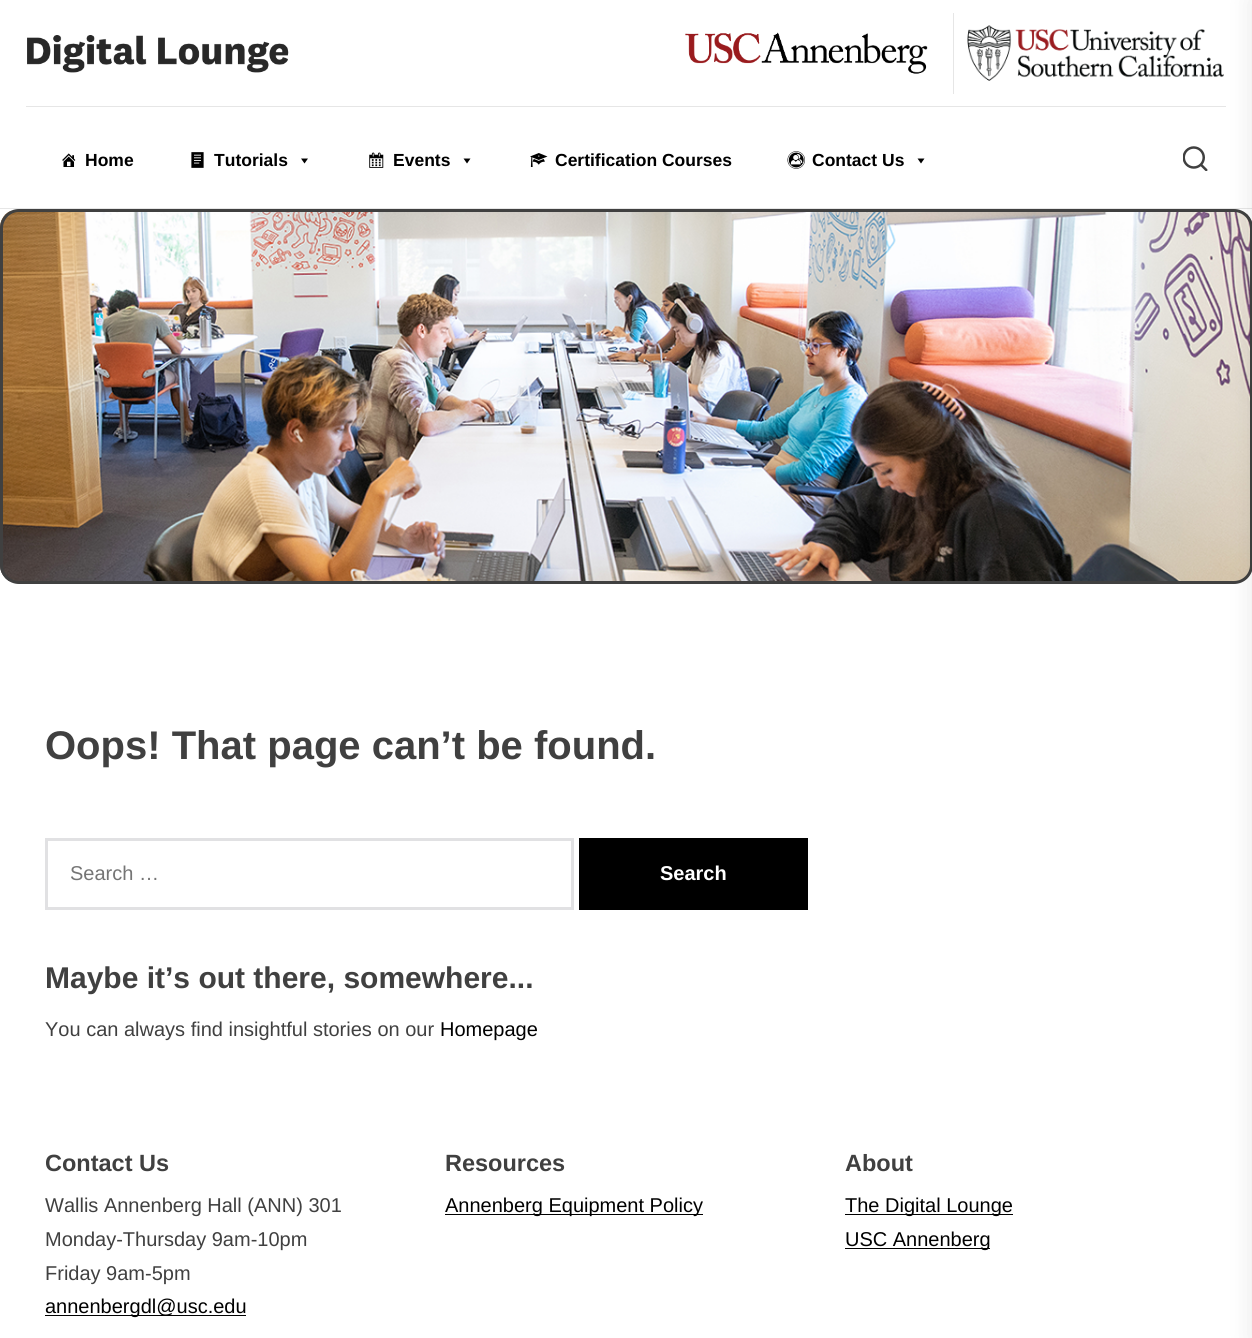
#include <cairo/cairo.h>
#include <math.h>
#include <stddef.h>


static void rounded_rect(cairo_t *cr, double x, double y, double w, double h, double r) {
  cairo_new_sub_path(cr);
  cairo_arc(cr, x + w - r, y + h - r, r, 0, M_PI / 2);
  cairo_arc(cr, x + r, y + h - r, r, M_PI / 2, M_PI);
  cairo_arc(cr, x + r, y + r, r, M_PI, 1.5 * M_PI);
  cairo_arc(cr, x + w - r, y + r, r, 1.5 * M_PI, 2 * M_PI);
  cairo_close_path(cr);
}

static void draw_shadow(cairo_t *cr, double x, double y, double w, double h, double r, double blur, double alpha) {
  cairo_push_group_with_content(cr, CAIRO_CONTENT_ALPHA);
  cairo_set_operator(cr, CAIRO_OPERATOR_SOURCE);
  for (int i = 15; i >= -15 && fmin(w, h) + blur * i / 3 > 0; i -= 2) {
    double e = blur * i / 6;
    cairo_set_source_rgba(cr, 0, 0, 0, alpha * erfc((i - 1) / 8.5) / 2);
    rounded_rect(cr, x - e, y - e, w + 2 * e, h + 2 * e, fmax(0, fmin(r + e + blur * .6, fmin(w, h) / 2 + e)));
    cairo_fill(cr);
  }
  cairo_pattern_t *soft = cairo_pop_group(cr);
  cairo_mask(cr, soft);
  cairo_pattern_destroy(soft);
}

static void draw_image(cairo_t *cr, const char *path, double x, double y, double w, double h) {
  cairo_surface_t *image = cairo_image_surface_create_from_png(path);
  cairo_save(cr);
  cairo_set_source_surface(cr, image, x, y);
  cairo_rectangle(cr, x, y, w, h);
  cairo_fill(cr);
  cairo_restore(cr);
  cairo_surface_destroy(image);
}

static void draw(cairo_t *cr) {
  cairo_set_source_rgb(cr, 1, 1, 1);
  cairo_paint(cr);
  cairo_set_source_rgb(cr, 230 / 255.0, 230 / 255.0, 230 / 255.0);
  cairo_rectangle(cr, 26, 106, 1200, 1);
  cairo_fill(cr);
  draw_image(cr, "images/1.png", 27, 35, 262, 38);
  draw_image(cr, "images/2.png", 685, 32, 243, 42);
  cairo_rectangle(cr, 953, 13, 1, 81);
  cairo_fill(cr);
  draw_image(cr, "images/3.png", 967, 25, 257, 56);
  cairo_rectangle(cr, 0, 208, 1252, 1);
  cairo_fill(cr);
  draw_image(cr, "images/4.png", 62, 153, 14, 14);
  draw_image(cr, "images/5.png", 191, 152, 13, 16);
  cairo_set_source_rgb(cr, 0, 0, 0);
  cairo_new_path(cr);
  cairo_move_to(cr, 308, 158.5);
  cairo_line_to(cr, 304.5, 163.5);
  cairo_line_to(cr, 301, 158.5);
  cairo_close_path(cr);
  cairo_fill(cr);
  draw_image(cr, "images/6.png", 369, 152, 15, 16);
  cairo_new_path(cr);
  cairo_move_to(cr, 470.5, 158.5);
  cairo_line_to(cr, 467, 163.5);
  cairo_line_to(cr, 463.5, 158.5);
  cairo_close_path(cr);
  cairo_fill(cr);
  draw_image(cr, "images/7.png", 530, 153, 18, 14);
  draw_image(cr, "images/8.png", 787, 151, 18, 18);
  cairo_new_path(cr);
  cairo_move_to(cr, 924.5, 158.5);
  cairo_line_to(cr, 921, 163.5);
  cairo_line_to(cr, 917.5, 158.5);
  cairo_close_path(cr);
  cairo_fill(cr);
  draw_image(cr, "images/9.png", 1183, 146, 25, 25);
  draw_image(cr, "images/10.png", 0, 211, 1252, 371);
  rounded_rect(cr, 1.5, 210.5, 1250, 372, 17.5);
  cairo_set_source_rgb(cr, 64 / 255.0, 64 / 255.0, 64 / 255.0);
  cairo_set_line_width(cr, 3);
  cairo_stroke(cr);
  cairo_set_source_rgb(cr, 0, 0, 0);
  draw_shadow(cr, 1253, 0, 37, 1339, 0, 12.5, 0.1);
  cairo_rectangle(cr, 46.5, 839.5, 526, 69);
  cairo_set_source_rgb(cr, 225 / 255.0, 225 / 255.0, 227 / 255.0);
  cairo_stroke(cr);
  cairo_set_source_rgb(cr, 0, 0, 0);
  cairo_rectangle(cr, 579, 838, 229, 72);
  cairo_fill(cr);
  cairo_rectangle(cr, 45, 1315, 201, 1);
  cairo_fill(cr);
  cairo_rectangle(cr, 445, 1214, 258, 1);
  cairo_fill(cr);
  cairo_rectangle(cr, 845, 1214, 168, 1);
  cairo_fill(cr);
  cairo_rectangle(cr, 845, 1248, 145, 1);
  cairo_fill(cr);
  cairo_select_font_face(cr, "Liberation Sans", CAIRO_FONT_SLANT_NORMAL, CAIRO_FONT_WEIGHT_BOLD);
  cairo_set_font_size(cr, 17.5);
  cairo_move_to(cr, 85, 166);
  cairo_show_text(cr, "Home");
  cairo_move_to(cr, 214, 166);
  cairo_show_text(cr, "Tutorials");
  cairo_move_to(cr, 393, 166);
  cairo_show_text(cr, "Events");
  cairo_move_to(cr, 555, 166);
  cairo_show_text(cr, "Certification Courses");
  cairo_move_to(cr, 812, 166);
  cairo_show_text(cr, "Contact Us");
  cairo_set_font_size(cr, 40);
  cairo_set_source_rgb(cr, 64 / 255.0, 64 / 255.0, 64 / 255.0);
  cairo_move_to(cr, 45, 759);
  cairo_show_text(cr, "Oops! That page can’t be found.");
  cairo_select_font_face(cr, "Liberation Sans", CAIRO_FONT_SLANT_NORMAL, CAIRO_FONT_WEIGHT_NORMAL);
  cairo_set_font_size(cr, 20);
  cairo_set_source_rgb(cr, 117 / 255.0, 117 / 255.0, 117 / 255.0);
  cairo_move_to(cr, 70, 880);
  cairo_show_text(cr, "Search …");
  cairo_select_font_face(cr, "Liberation Sans", CAIRO_FONT_SLANT_NORMAL, CAIRO_FONT_WEIGHT_BOLD);
  cairo_set_source_rgb(cr, 1, 1, 1);
  cairo_move_to(cr, 660, 880);
  cairo_show_text(cr, "Search");
  cairo_set_font_size(cr, 30);
  cairo_set_source_rgb(cr, 64 / 255.0, 64 / 255.0, 64 / 255.0);
  cairo_move_to(cr, 45, 988);
  cairo_show_text(cr, "Maybe it’s out there, somewhere...");
  cairo_select_font_face(cr, "Liberation Sans", CAIRO_FONT_SLANT_NORMAL, CAIRO_FONT_WEIGHT_NORMAL);
  cairo_set_font_size(cr, 20);
  cairo_move_to(cr, 45, 1036);
  cairo_show_text(cr, "You can always find insightful stories on our");
  cairo_set_source_rgb(cr, 0, 0, 0);
  cairo_move_to(cr, 440, 1036);
  cairo_show_text(cr, "Homepage");
  cairo_select_font_face(cr, "Liberation Sans", CAIRO_FONT_SLANT_NORMAL, CAIRO_FONT_WEIGHT_BOLD);
  cairo_set_font_size(cr, 23.5);
  cairo_set_source_rgb(cr, 64 / 255.0, 64 / 255.0, 64 / 255.0);
  cairo_move_to(cr, 45, 1171);
  cairo_show_text(cr, "Contact Us");
  cairo_select_font_face(cr, "Liberation Sans", CAIRO_FONT_SLANT_NORMAL, CAIRO_FONT_WEIGHT_NORMAL);
  cairo_set_font_size(cr, 20);
  cairo_move_to(cr, 45, 1212);
  cairo_show_text(cr, "Wallis Annenberg Hall (ANN) 301");
  cairo_move_to(cr, 45, 1246);
  cairo_show_text(cr, "Monday-Thursday 9am-10pm");
  cairo_move_to(cr, 45, 1280);
  cairo_show_text(cr, "Friday 9am-5pm");
  cairo_set_source_rgb(cr, 0, 0, 0);
  cairo_move_to(cr, 45, 1313);
  cairo_show_text(cr, "annenbergdl@usc.edu");
  cairo_select_font_face(cr, "Liberation Sans", CAIRO_FONT_SLANT_NORMAL, CAIRO_FONT_WEIGHT_BOLD);
  cairo_set_font_size(cr, 23.5);
  cairo_set_source_rgb(cr, 64 / 255.0, 64 / 255.0, 64 / 255.0);
  cairo_move_to(cr, 445, 1171);
  cairo_show_text(cr, "Resources");
  cairo_select_font_face(cr, "Liberation Sans", CAIRO_FONT_SLANT_NORMAL, CAIRO_FONT_WEIGHT_NORMAL);
  cairo_set_font_size(cr, 20);
  cairo_set_source_rgb(cr, 0, 0, 0);
  cairo_move_to(cr, 445, 1212);
  cairo_show_text(cr, "Annenberg Equipment Policy");
  cairo_select_font_face(cr, "Liberation Sans", CAIRO_FONT_SLANT_NORMAL, CAIRO_FONT_WEIGHT_BOLD);
  cairo_set_font_size(cr, 23.5);
  cairo_set_source_rgb(cr, 64 / 255.0, 64 / 255.0, 64 / 255.0);
  cairo_move_to(cr, 845, 1171);
  cairo_show_text(cr, "About");
  cairo_select_font_face(cr, "Liberation Sans", CAIRO_FONT_SLANT_NORMAL, CAIRO_FONT_WEIGHT_NORMAL);
  cairo_set_font_size(cr, 20);
  cairo_set_source_rgb(cr, 0, 0, 0);
  cairo_move_to(cr, 845, 1212);
  cairo_show_text(cr, "The Digital Lounge");
  cairo_move_to(cr, 845, 1246);
  cairo_show_text(cr, "USC Annenberg");
}

int main(void) {
  cairo_surface_t *surface = cairo_image_surface_create(CAIRO_FORMAT_RGB24, 1252, 1338);
  cairo_t *cr = cairo_create(surface);
  cairo_font_options_t *options = cairo_font_options_create();
  cairo_font_options_set_hint_metrics(options, CAIRO_HINT_METRICS_OFF);
  cairo_font_options_set_hint_style(options, CAIRO_HINT_STYLE_NONE);
  cairo_set_font_options(cr, options);
  cairo_set_miter_limit(cr, 4);
  draw(cr);
  cairo_surface_write_to_png(surface, "out.png");
  cairo_font_options_destroy(options);
  cairo_destroy(cr);
  cairo_surface_destroy(surface);
  return 0;
}
